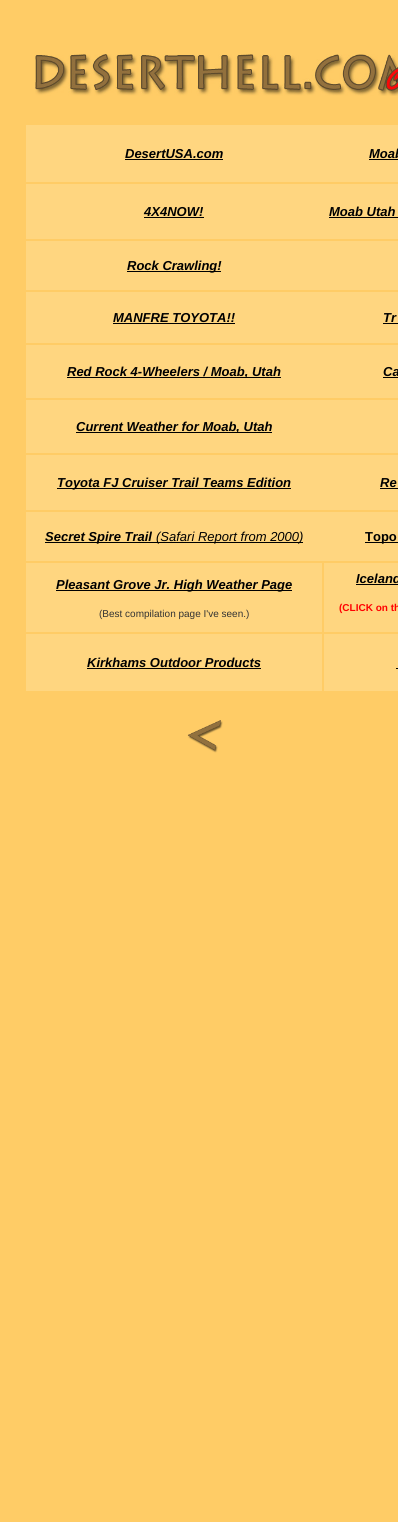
#include <cairo/cairo.h>
#include <math.h>
#include <stddef.h>


static void draw_image(cairo_t *cr, const char *path, double x, double y, double w, double h) {
  cairo_surface_t *image = cairo_image_surface_create_from_png(path);
  cairo_save(cr);
  cairo_set_source_surface(cr, image, x, y);
  cairo_rectangle(cr, x, y, w, h);
  cairo_fill(cr);
  cairo_restore(cr);
  cairo_surface_destroy(image);
}

static void draw(cairo_t *cr) {
  cairo_set_source_rgb(cr, 1, 204 / 255.0, 102 / 255.0);
  cairo_paint(cr);
  draw_image(cr, "images/1.png", 35, 54, 363, 42);
  cairo_set_source_rgb(cr, 1, 214 / 255.0, 128 / 255.0);
  cairo_rectangle(cr, 26, 125, 372, 57);
  cairo_fill(cr);
  cairo_set_source_rgb(cr, 0, 0, 0);
  cairo_rectangle(cr, 125, 159, 98, 1);
  cairo_fill(cr);
  cairo_rectangle(cr, 369, 159, 29, 1);
  cairo_fill(cr);
  cairo_set_source_rgb(cr, 1, 214 / 255.0, 128 / 255.0);
  cairo_rectangle(cr, 26, 184, 372, 55);
  cairo_fill(cr);
  cairo_set_source_rgb(cr, 0, 0, 0);
  cairo_rectangle(cr, 144, 217, 60, 1);
  cairo_fill(cr);
  cairo_rectangle(cr, 329, 217, 69, 1);
  cairo_fill(cr);
  cairo_set_source_rgb(cr, 1, 214 / 255.0, 128 / 255.0);
  cairo_rectangle(cr, 26, 241, 372, 49);
  cairo_fill(cr);
  cairo_set_source_rgb(cr, 0, 0, 0);
  cairo_rectangle(cr, 127, 271, 94, 1);
  cairo_fill(cr);
  cairo_set_source_rgb(cr, 1, 214 / 255.0, 128 / 255.0);
  cairo_rectangle(cr, 26, 292, 372, 51);
  cairo_fill(cr);
  cairo_set_source_rgb(cr, 0, 0, 0);
  cairo_rectangle(cr, 113, 323, 122, 1);
  cairo_fill(cr);
  cairo_rectangle(cr, 383, 323, 15, 1);
  cairo_fill(cr);
  cairo_set_source_rgb(cr, 1, 214 / 255.0, 128 / 255.0);
  cairo_rectangle(cr, 26, 345, 372, 53);
  cairo_fill(cr);
  cairo_set_source_rgb(cr, 0, 0, 0);
  cairo_rectangle(cr, 67, 377, 214, 1);
  cairo_fill(cr);
  cairo_rectangle(cr, 383, 377, 15, 1);
  cairo_fill(cr);
  cairo_set_source_rgb(cr, 1, 214 / 255.0, 128 / 255.0);
  cairo_rectangle(cr, 26, 400, 372, 53);
  cairo_fill(cr);
  cairo_set_source_rgb(cr, 0, 0, 0);
  cairo_rectangle(cr, 76, 432, 196, 1);
  cairo_fill(cr);
  cairo_set_source_rgb(cr, 1, 214 / 255.0, 128 / 255.0);
  cairo_rectangle(cr, 26, 455, 372, 55);
  cairo_fill(cr);
  cairo_set_source_rgb(cr, 0, 0, 0);
  cairo_rectangle(cr, 57, 488, 234, 1);
  cairo_fill(cr);
  cairo_rectangle(cr, 380, 488, 18, 1);
  cairo_fill(cr);
  cairo_set_source_rgb(cr, 1, 214 / 255.0, 128 / 255.0);
  cairo_rectangle(cr, 26, 512, 372, 49);
  cairo_fill(cr);
  cairo_set_source_rgb(cr, 0, 0, 0);
  cairo_rectangle(cr, 45, 542, 258, 1);
  cairo_fill(cr);
  cairo_rectangle(cr, 365, 542, 33, 1);
  cairo_fill(cr);
  cairo_set_source_rgb(cr, 1, 214 / 255.0, 128 / 255.0);
  cairo_rectangle(cr, 26, 563, 296, 69);
  cairo_fill(cr);
  cairo_set_source_rgb(cr, 0, 0, 0);
  cairo_rectangle(cr, 56, 590, 236, 1);
  cairo_fill(cr);
  cairo_set_source_rgb(cr, 1, 214 / 255.0, 128 / 255.0);
  cairo_rectangle(cr, 324, 563, 74, 69);
  cairo_fill(cr);
  cairo_set_source_rgb(cr, 0, 0, 0);
  cairo_rectangle(cr, 356, 584, 42, 1);
  cairo_fill(cr);
  cairo_set_source_rgb(cr, 1, 214 / 255.0, 128 / 255.0);
  cairo_rectangle(cr, 26, 634, 296, 57);
  cairo_fill(cr);
  cairo_set_source_rgb(cr, 0, 0, 0);
  cairo_rectangle(cr, 87, 668, 174, 1);
  cairo_fill(cr);
  cairo_set_source_rgb(cr, 1, 214 / 255.0, 128 / 255.0);
  cairo_rectangle(cr, 324, 634, 74, 57);
  cairo_fill(cr);
  cairo_set_source_rgb(cr, 0, 0, 0);
  cairo_rectangle(cr, 396, 668, 2, 1);
  cairo_fill(cr);
  draw_image(cr, "images/2.png", 187, 720, 36, 33);
  cairo_select_font_face(cr, "Liberation Sans", CAIRO_FONT_SLANT_ITALIC, CAIRO_FONT_WEIGHT_BOLD);
  cairo_set_font_size(cr, 13);
  cairo_move_to(cr, 125, 158);
  cairo_show_text(cr, "DesertUSA.com");
  cairo_move_to(cr, 369, 158);
  cairo_show_text(cr, "Moab");
  cairo_move_to(cr, 144, 216);
  cairo_show_text(cr, "4X4NOW!");
  cairo_move_to(cr, 329, 216);
  cairo_show_text(cr, "Moab Utah");
  cairo_move_to(cr, 127, 270);
  cairo_show_text(cr, "Rock Crawling!");
  cairo_move_to(cr, 113, 322);
  cairo_show_text(cr, "MANFRE TOYOTA!!");
  cairo_move_to(cr, 383, 322);
  cairo_show_text(cr, "Tr");
  cairo_move_to(cr, 67, 376);
  cairo_show_text(cr, "Red Rock 4-Wheelers / Moab, Utah");
  cairo_move_to(cr, 383, 376);
  cairo_show_text(cr, "Ca");
  cairo_move_to(cr, 76, 431);
  cairo_show_text(cr, "Current Weather for Moab, Utah");
  cairo_move_to(cr, 57, 487);
  cairo_show_text(cr, "Toyota FJ Cruiser Trail Teams Edition");
  cairo_move_to(cr, 380, 487);
  cairo_show_text(cr, "Re");
  cairo_move_to(cr, 45, 541);
  cairo_show_text(cr, "Secret Spire Trail");
  cairo_select_font_face(cr, "Liberation Sans", CAIRO_FONT_SLANT_ITALIC, CAIRO_FONT_WEIGHT_NORMAL);
  cairo_move_to(cr, 156, 541);
  cairo_show_text(cr, "(Safari Report from 2000)");
  cairo_select_font_face(cr, "Liberation Sans", CAIRO_FONT_SLANT_NORMAL, CAIRO_FONT_WEIGHT_BOLD);
  cairo_move_to(cr, 365, 541);
  cairo_show_text(cr, "Topo");
  cairo_select_font_face(cr, "Liberation Sans", CAIRO_FONT_SLANT_ITALIC, CAIRO_FONT_WEIGHT_BOLD);
  cairo_move_to(cr, 56, 589);
  cairo_show_text(cr, "Pleasant Grove Jr. High Weather Page");
  cairo_select_font_face(cr, "Liberation Sans", CAIRO_FONT_SLANT_NORMAL, CAIRO_FONT_WEIGHT_NORMAL);
  cairo_set_font_size(cr, 10);
  cairo_set_source_rgb(cr, 51 / 255.0, 51 / 255.0, 51 / 255.0);
  cairo_move_to(cr, 99, 617);
  cairo_show_text(cr, "(Best compilation page I've seen.)");
  cairo_select_font_face(cr, "Liberation Sans", CAIRO_FONT_SLANT_ITALIC, CAIRO_FONT_WEIGHT_BOLD);
  cairo_set_font_size(cr, 13);
  cairo_set_source_rgb(cr, 0, 0, 0);
  cairo_move_to(cr, 356, 583);
  cairo_show_text(cr, "Iceland");
  cairo_select_font_face(cr, "Liberation Sans", CAIRO_FONT_SLANT_NORMAL, CAIRO_FONT_WEIGHT_BOLD);
  cairo_set_font_size(cr, 10);
  cairo_set_source_rgb(cr, 1, 0, 0);
  cairo_move_to(cr, 339, 611);
  cairo_show_text(cr, "(CLICK on th");
  cairo_select_font_face(cr, "Liberation Sans", CAIRO_FONT_SLANT_ITALIC, CAIRO_FONT_WEIGHT_BOLD);
  cairo_set_font_size(cr, 13);
  cairo_set_source_rgb(cr, 0, 0, 0);
  cairo_move_to(cr, 87, 667);
  cairo_show_text(cr, "Kirkhams Outdoor Products");
}

int main(void) {
  cairo_surface_t *surface = cairo_image_surface_create(CAIRO_FORMAT_RGB24, 398, 1522);
  cairo_t *cr = cairo_create(surface);
  cairo_font_options_t *options = cairo_font_options_create();
  cairo_font_options_set_hint_metrics(options, CAIRO_HINT_METRICS_OFF);
  cairo_font_options_set_hint_style(options, CAIRO_HINT_STYLE_NONE);
  cairo_set_font_options(cr, options);
  cairo_set_miter_limit(cr, 4);
  draw(cr);
  cairo_surface_write_to_png(surface, "out.png");
  cairo_font_options_destroy(options);
  cairo_destroy(cr);
  cairo_surface_destroy(surface);
  return 0;
}
